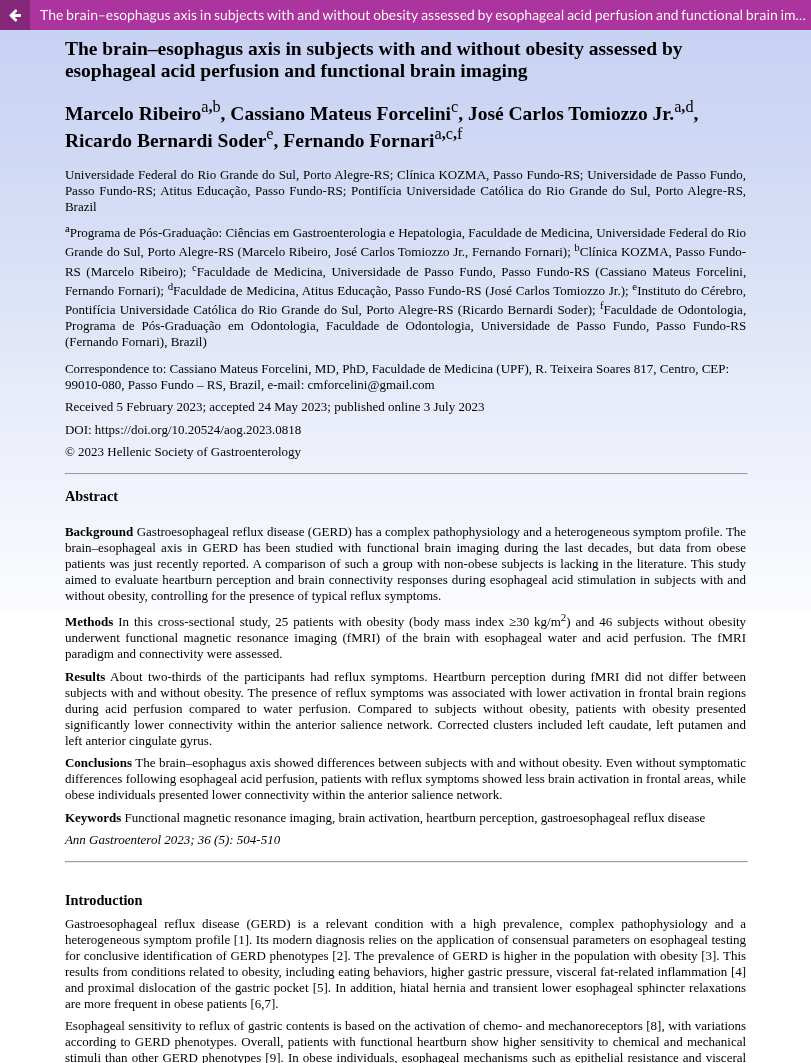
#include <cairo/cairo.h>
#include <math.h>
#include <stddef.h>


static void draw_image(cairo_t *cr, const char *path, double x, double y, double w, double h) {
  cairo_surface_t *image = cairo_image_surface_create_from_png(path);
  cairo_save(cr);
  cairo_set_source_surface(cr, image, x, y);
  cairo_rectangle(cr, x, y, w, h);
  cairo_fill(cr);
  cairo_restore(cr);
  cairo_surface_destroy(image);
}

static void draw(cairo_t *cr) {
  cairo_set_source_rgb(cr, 1, 1, 1);
  cairo_paint(cr);
  draw_image(cr, "images/1.png", 0, 30, 811, 581);
  cairo_set_source_rgb(cr, 172 / 255.0, 52 / 255.0, 158 / 255.0);
  cairo_rectangle(cr, 30, 0, 781, 30);
  cairo_fill(cr);
  cairo_set_source_rgb(cr, 133 / 255.0, 40 / 255.0, 122 / 255.0);
  cairo_rectangle(cr, 0, 0, 30, 30);
  cairo_fill(cr);
  draw_image(cr, "images/2.png", 9, 9, 12, 13);
  draw_image(cr, "images/3.png", 64, 42, 684, 1021);
  cairo_select_font_face(cr, "Lato", CAIRO_FONT_SLANT_NORMAL, CAIRO_FONT_WEIGHT_NORMAL);
  cairo_set_font_size(cr, 14);
  cairo_set_source_rgb(cr, 1, 1, 1);
  cairo_move_to(cr, 40, 20);
  cairo_show_text(cr, "The brain–esophagus axis in subjects with and without obesity assessed by esophageal acid perfusion and functional brain im…");
}

int main(void) {
  cairo_surface_t *surface = cairo_image_surface_create(CAIRO_FORMAT_RGB24, 811, 1063);
  cairo_t *cr = cairo_create(surface);
  cairo_font_options_t *options = cairo_font_options_create();
  cairo_font_options_set_hint_metrics(options, CAIRO_HINT_METRICS_OFF);
  cairo_font_options_set_hint_style(options, CAIRO_HINT_STYLE_NONE);
  cairo_set_font_options(cr, options);
  cairo_set_miter_limit(cr, 4);
  draw(cr);
  cairo_surface_write_to_png(surface, "out.png");
  cairo_font_options_destroy(options);
  cairo_destroy(cr);
  cairo_surface_destroy(surface);
  return 0;
}
